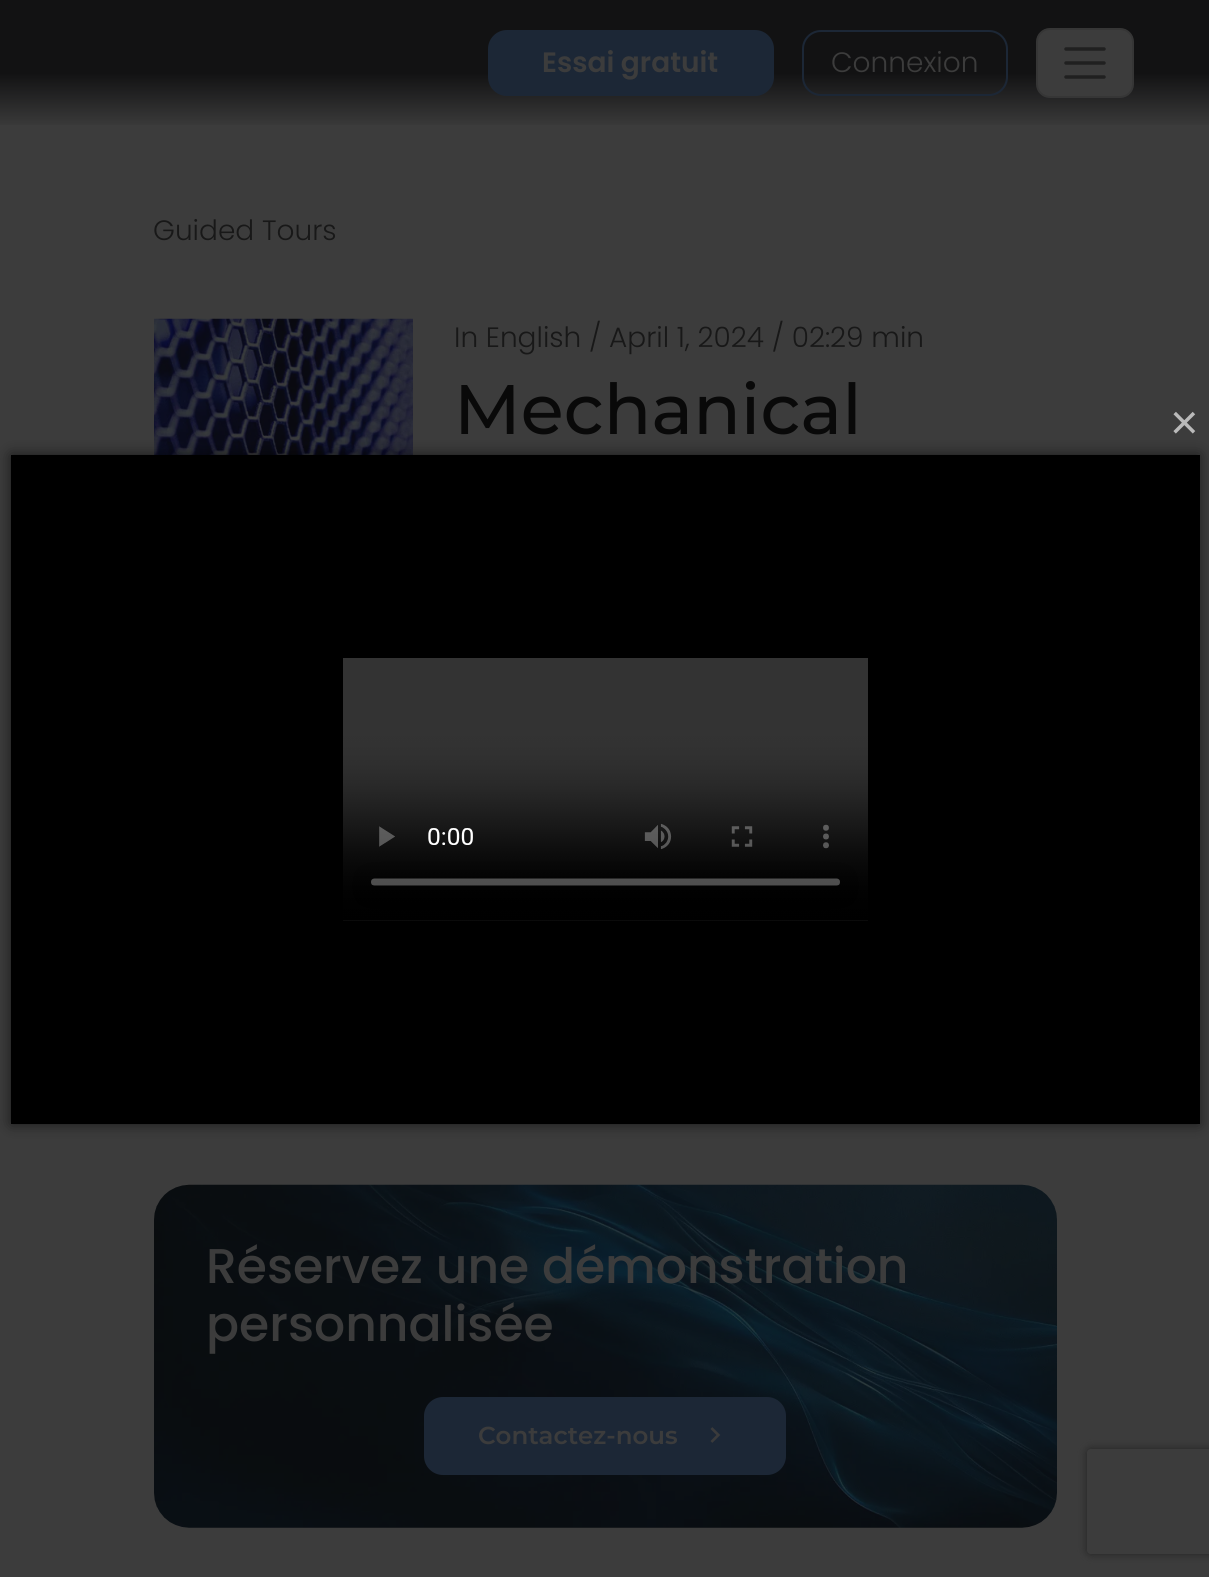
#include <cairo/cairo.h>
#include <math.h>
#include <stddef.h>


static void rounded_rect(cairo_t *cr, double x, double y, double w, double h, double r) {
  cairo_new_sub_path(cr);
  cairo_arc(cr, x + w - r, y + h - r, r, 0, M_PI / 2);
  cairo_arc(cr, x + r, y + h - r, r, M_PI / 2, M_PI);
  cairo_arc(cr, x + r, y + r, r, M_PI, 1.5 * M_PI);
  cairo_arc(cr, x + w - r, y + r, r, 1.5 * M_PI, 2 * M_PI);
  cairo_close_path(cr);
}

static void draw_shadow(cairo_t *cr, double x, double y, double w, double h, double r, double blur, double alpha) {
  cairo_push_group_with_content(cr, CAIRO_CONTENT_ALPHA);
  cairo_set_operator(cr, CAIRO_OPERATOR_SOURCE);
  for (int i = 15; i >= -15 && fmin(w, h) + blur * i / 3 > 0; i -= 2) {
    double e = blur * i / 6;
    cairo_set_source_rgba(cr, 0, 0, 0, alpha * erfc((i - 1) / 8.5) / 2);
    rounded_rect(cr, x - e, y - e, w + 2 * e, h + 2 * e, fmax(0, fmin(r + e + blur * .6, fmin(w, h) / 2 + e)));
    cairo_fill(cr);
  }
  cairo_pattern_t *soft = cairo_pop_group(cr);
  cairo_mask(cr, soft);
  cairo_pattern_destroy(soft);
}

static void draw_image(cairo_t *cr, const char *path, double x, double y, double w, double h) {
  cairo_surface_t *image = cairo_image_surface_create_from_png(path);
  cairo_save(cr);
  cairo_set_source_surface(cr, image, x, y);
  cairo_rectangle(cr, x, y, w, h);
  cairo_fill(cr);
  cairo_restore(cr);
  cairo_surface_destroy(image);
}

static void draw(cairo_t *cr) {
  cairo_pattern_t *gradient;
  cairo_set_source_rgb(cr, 60 / 255.0, 60 / 255.0, 60 / 255.0);
  cairo_paint(cr);
  gradient = cairo_pattern_create_linear(605, 126, 605, 0);
  cairo_pattern_add_color_stop_rgba(gradient, 0, 58 / 255.0, 58 / 255.0, 58 / 255.0, 1);
  cairo_pattern_add_color_stop_rgba(gradient, 0.42, 18 / 255.0, 18 / 255.0, 19 / 255.0, 1);
  cairo_pattern_add_color_stop_rgba(gradient, 1, 18 / 255.0, 18 / 255.0, 19 / 255.0, 1);
  cairo_set_source(cr, gradient);
  cairo_pattern_destroy(gradient);
  cairo_rectangle(cr, 0, 0, 1209, 125);
  cairo_fill(cr);
  cairo_set_source_rgb(cr, 28 / 255.0, 39 / 255.0, 54 / 255.0);
  rounded_rect(cr, 489, 31, 284, 64, 18);
  cairo_fill_preserve(cr);
  cairo_stroke(cr);
  rounded_rect(cr, 803, 31, 204, 64, 18);
  cairo_stroke(cr);
  cairo_set_source_rgb(cr, 60 / 255.0, 60 / 255.0, 60 / 255.0);
  rounded_rect(cr, 1036, 28, 98, 70, 14);
  cairo_fill(cr);
  rounded_rect(cr, 1037, 29, 96, 68, 13);
  cairo_set_source_rgba(cr, 9 / 255.0, 9 / 255.0, 9 / 255.0, 0.1);
  cairo_stroke(cr);
  cairo_new_path(cr);
  cairo_move_to(cr, 1066, 49);
  cairo_line_to(cr, 1104, 49);
  cairo_move_to(cr, 1066, 63);
  cairo_line_to(cr, 1104, 63);
  cairo_move_to(cr, 1066, 77);
  cairo_line_to(cr, 1104, 77);
  cairo_set_source_rgb(cr, 32 / 255.0, 32 / 255.0, 32 / 255.0);
  cairo_set_line_width(cr, 3.5);
  cairo_set_line_cap(cr, CAIRO_LINE_CAP_ROUND);
  cairo_stroke(cr);
  draw_image(cr, "images/1.png", 154, 318, 259, 137);
  cairo_set_source_rgb(cr, 0, 0, 0);
  draw_shadow(cr, 11, 455, 1188, 669, 0, 7, 0.6);
  cairo_set_source_rgb(cr, 0, 0, 0);
  cairo_rectangle(cr, 11, 455, 332, 669);
  cairo_fill(cr);
  draw_image(cr, "images/2.png", 343, 455, 857, 669);
  draw_image(cr, "images/3.png", 154, 1184, 903, 344);
  cairo_set_source_rgb(cr, 28 / 255.0, 39 / 255.0, 54 / 255.0);
  rounded_rect(cr, 425, 1398, 360, 76, 18);
  cairo_fill_preserve(cr);
  cairo_set_line_width(cr, 2);
  cairo_set_line_cap(cr, CAIRO_LINE_CAP_BUTT);
  cairo_stroke(cr);
  draw_image(cr, "images/4.png", 710, 1427, 11, 16);
  cairo_save(cr);
  cairo_set_fill_rule(cr, CAIRO_FILL_RULE_EVEN_ODD);
  cairo_new_path(cr);
  cairo_move_to(cr, 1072, 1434);
  cairo_line_to(cr, 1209, 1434);
  cairo_line_to(cr, 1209, 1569);
  cairo_line_to(cr, 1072, 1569);
  cairo_close_path(cr);
  cairo_move_to(cr, 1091, 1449);
  cairo_line_to(cr, 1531, 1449);
  cairo_curve_to(cr, 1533, 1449, 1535, 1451, 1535, 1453);
  cairo_line_to(cr, 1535, 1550);
  cairo_curve_to(cr, 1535, 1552, 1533, 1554, 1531, 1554);
  cairo_line_to(cr, 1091, 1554);
  cairo_curve_to(cr, 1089, 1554, 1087, 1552, 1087, 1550);
  cairo_line_to(cr, 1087, 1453);
  cairo_curve_to(cr, 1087, 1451, 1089, 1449, 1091, 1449);
  cairo_close_path(cr);
  cairo_clip(cr);
  cairo_set_source_rgb(cr, 34 / 255.0, 34 / 255.0, 34 / 255.0);
  draw_shadow(cr, 1087, 1449, 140, 105, 4, 4.5, 1);
  cairo_restore(cr);
  cairo_select_font_face(cr, "Poppins SemiBold", CAIRO_FONT_SLANT_NORMAL, CAIRO_FONT_WEIGHT_NORMAL);
  cairo_set_font_size(cr, 28);
  cairo_set_source_rgb(cr, 60 / 255.0, 60 / 255.0, 60 / 255.0);
  cairo_move_to(cr, 542, 72);
  cairo_show_text(cr, "Essai gratuit");
  cairo_select_font_face(cr, "Poppins Light", CAIRO_FONT_SLANT_NORMAL, CAIRO_FONT_WEIGHT_NORMAL);
  cairo_move_to(cr, 831, 72);
  cairo_show_text(cr, "Connexion");
  cairo_set_source_rgb(cr, 24 / 255.0, 24 / 255.0, 24 / 255.0);
  cairo_move_to(cr, 153, 240);
  cairo_show_text(cr, "Guided Tours");
  cairo_move_to(cr, 454, 347);
  cairo_show_text(cr, "In English / April 1, 2024 / 02:29 min");
  cairo_select_font_face(cr, "Montserrat Medium", CAIRO_FONT_SLANT_NORMAL, CAIRO_FONT_WEIGHT_NORMAL);
  cairo_set_font_size(cr, 70);
  cairo_set_source_rgb(cr, 9 / 255.0, 9 / 255.0, 9 / 255.0);
  cairo_move_to(cr, 454, 434);
  cairo_show_text(cr, "Mechanical");
  cairo_select_font_face(cr, "Liberation Sans", CAIRO_FONT_SLANT_NORMAL, CAIRO_FONT_WEIGHT_NORMAL);
  cairo_set_font_size(cr, 49);
  cairo_set_source_rgb(cr, 186 / 255.0, 186 / 255.0, 186 / 255.0);
  cairo_move_to(cr, 1170, 439);
  cairo_show_text(cr, "×");
  cairo_select_font_face(cr, "Poppins Medium", CAIRO_FONT_SLANT_NORMAL, CAIRO_FONT_WEIGHT_NORMAL);
  cairo_set_font_size(cr, 48.8);
  cairo_set_source_rgb(cr, 60 / 255.0, 60 / 255.0, 60 / 255.0);
  cairo_move_to(cr, 206, 1283);
  cairo_show_text(cr, "Réservez une démonstration");
  cairo_move_to(cr, 206, 1341);
  cairo_show_text(cr, "personnalisée");
  cairo_select_font_face(cr, "Montserrat SemiBold", CAIRO_FONT_SLANT_NORMAL, CAIRO_FONT_WEIGHT_NORMAL);
  cairo_set_font_size(cr, 24.5);
  cairo_move_to(cr, 478, 1444);
  cairo_show_text(cr, "Contactez-nous");
}

int main(void) {
  cairo_surface_t *surface = cairo_image_surface_create(CAIRO_FORMAT_RGB24, 1209, 1577);
  cairo_t *cr = cairo_create(surface);
  cairo_font_options_t *options = cairo_font_options_create();
  cairo_font_options_set_hint_metrics(options, CAIRO_HINT_METRICS_OFF);
  cairo_font_options_set_hint_style(options, CAIRO_HINT_STYLE_NONE);
  cairo_set_font_options(cr, options);
  cairo_set_miter_limit(cr, 4);
  draw(cr);
  cairo_surface_write_to_png(surface, "out.png");
  cairo_font_options_destroy(options);
  cairo_destroy(cr);
  cairo_surface_destroy(surface);
  return 0;
}
